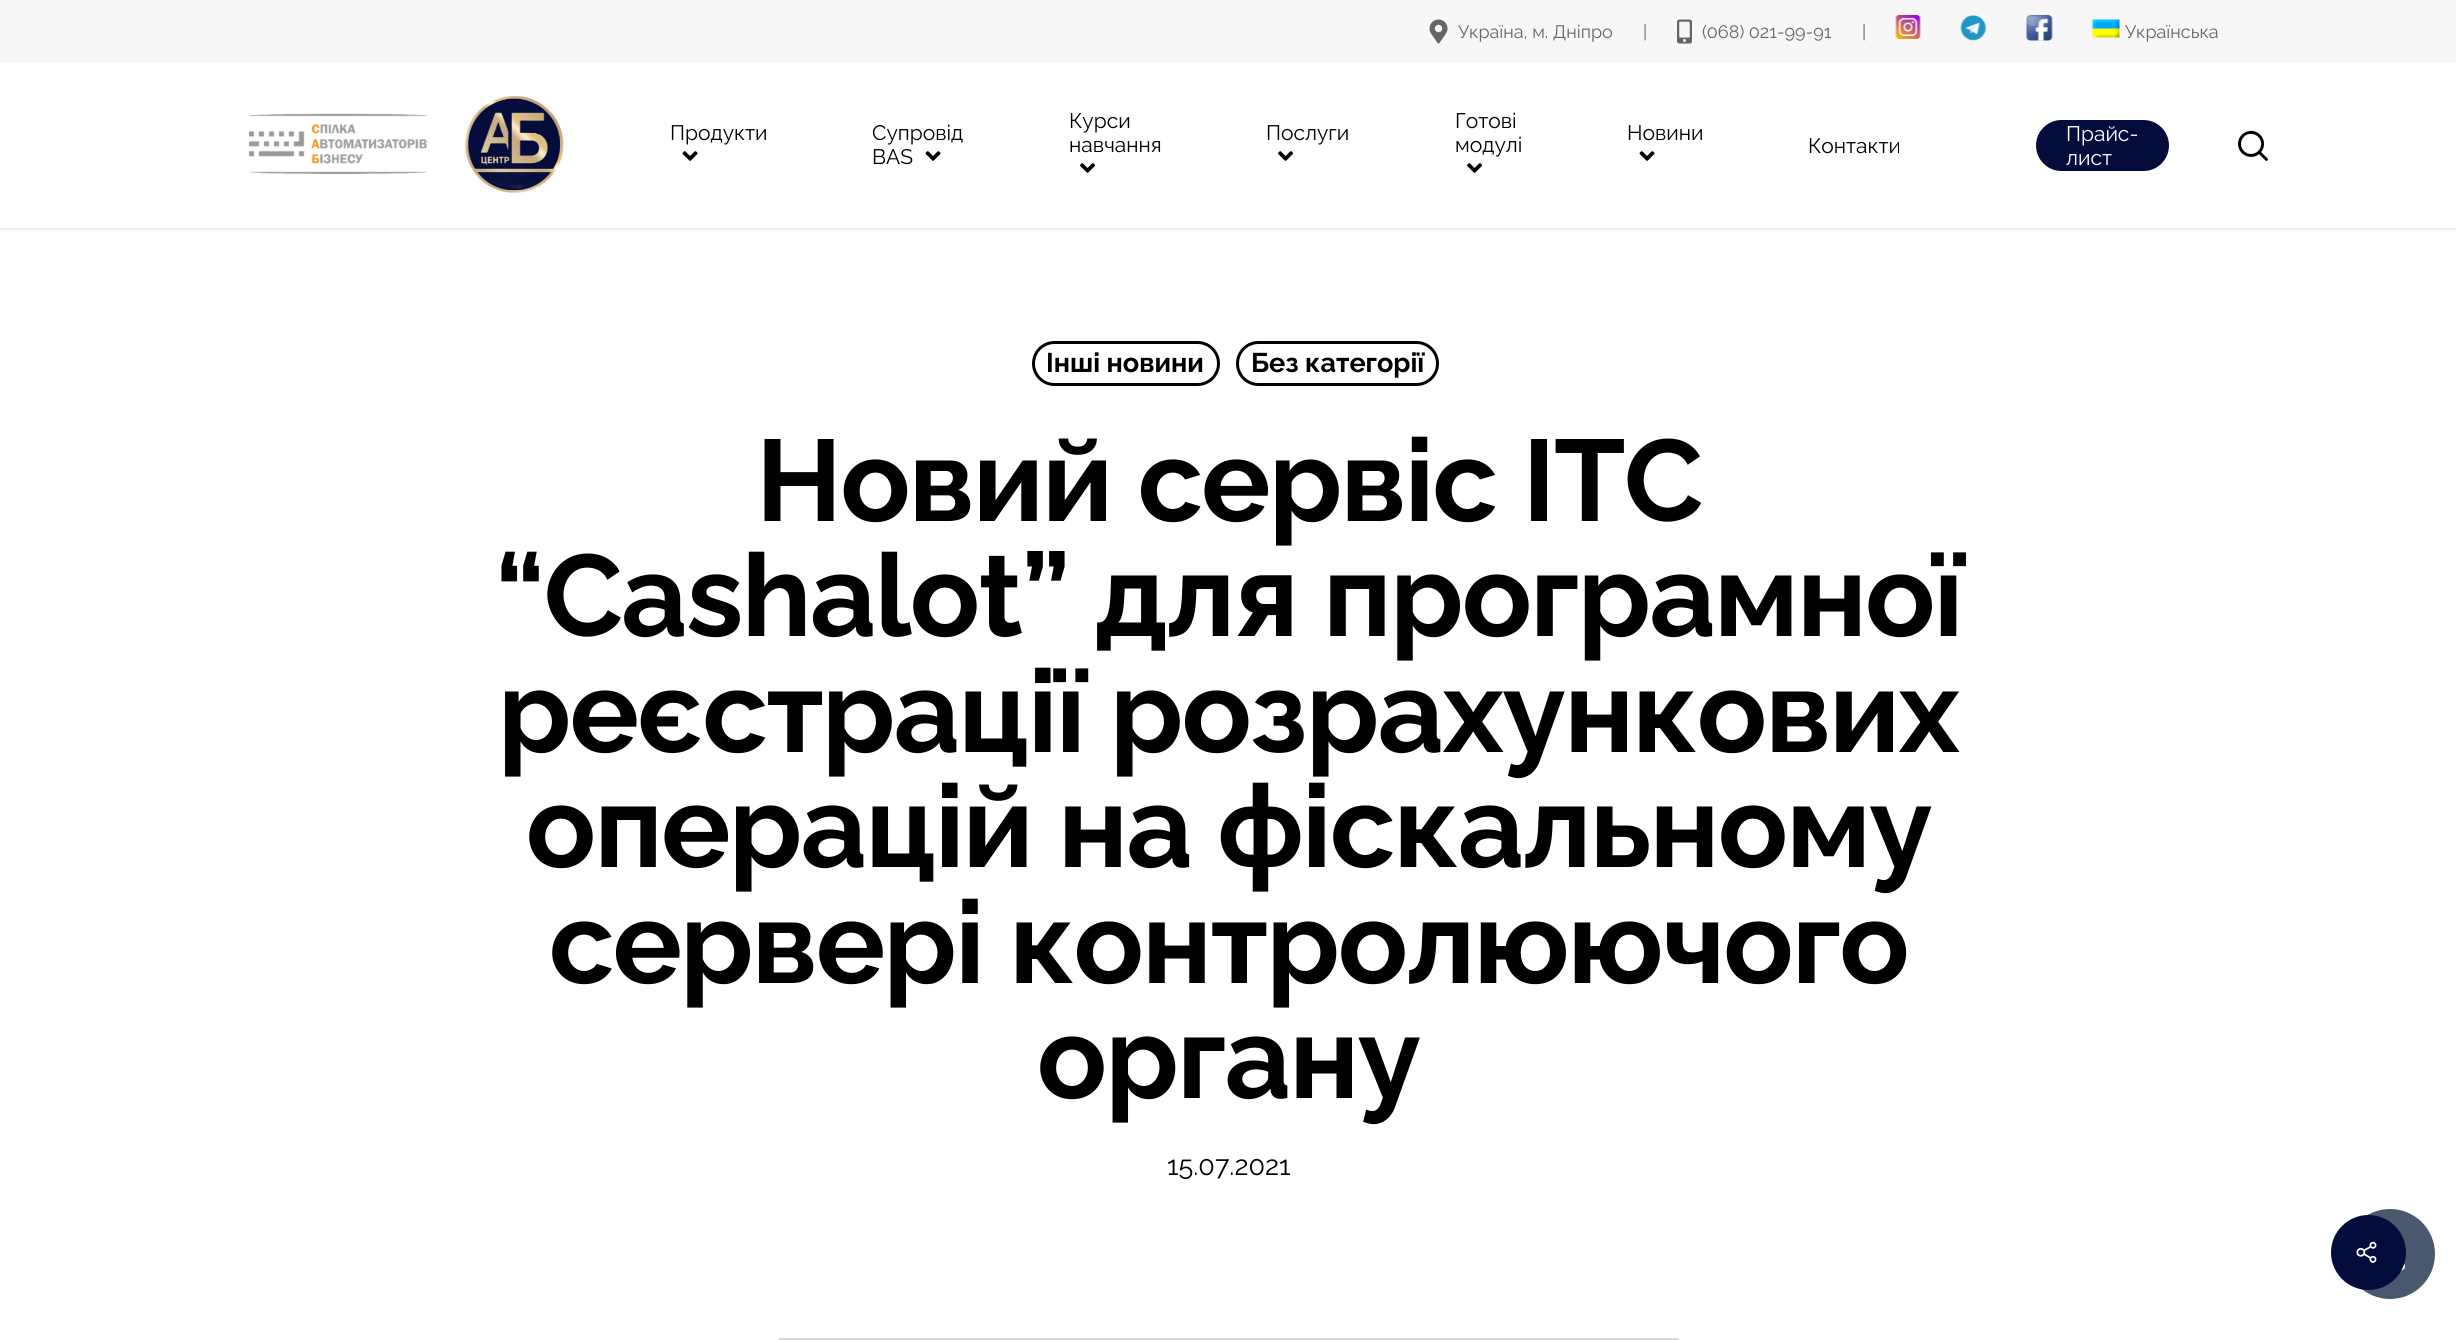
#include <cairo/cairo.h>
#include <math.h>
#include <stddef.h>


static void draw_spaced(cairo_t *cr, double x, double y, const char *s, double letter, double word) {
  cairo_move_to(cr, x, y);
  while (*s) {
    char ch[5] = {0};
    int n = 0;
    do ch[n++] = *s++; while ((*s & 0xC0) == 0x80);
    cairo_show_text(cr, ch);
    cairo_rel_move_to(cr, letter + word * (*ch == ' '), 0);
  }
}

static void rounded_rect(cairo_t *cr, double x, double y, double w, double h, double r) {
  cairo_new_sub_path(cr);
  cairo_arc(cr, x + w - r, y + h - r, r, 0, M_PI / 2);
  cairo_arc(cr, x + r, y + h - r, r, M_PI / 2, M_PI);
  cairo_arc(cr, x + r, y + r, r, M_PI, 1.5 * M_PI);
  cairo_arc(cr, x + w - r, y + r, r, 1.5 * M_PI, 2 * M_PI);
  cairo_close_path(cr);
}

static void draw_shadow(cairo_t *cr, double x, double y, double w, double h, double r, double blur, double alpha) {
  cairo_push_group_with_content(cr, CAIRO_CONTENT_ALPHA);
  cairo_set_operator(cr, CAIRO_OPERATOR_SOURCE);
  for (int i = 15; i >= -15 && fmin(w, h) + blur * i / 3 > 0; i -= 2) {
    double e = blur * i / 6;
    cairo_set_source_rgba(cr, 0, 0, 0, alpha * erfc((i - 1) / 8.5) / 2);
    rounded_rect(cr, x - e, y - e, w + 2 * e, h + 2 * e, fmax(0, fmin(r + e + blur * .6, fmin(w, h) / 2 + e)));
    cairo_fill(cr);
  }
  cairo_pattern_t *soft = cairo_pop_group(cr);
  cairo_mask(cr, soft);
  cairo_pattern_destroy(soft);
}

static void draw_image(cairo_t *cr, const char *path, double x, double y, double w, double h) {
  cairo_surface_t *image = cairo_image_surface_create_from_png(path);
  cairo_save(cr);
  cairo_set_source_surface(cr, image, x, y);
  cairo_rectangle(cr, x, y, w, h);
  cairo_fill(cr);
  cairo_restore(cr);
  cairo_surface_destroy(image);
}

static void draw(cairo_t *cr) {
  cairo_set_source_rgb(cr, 1, 1, 1);
  cairo_paint(cr);
  cairo_save(cr);
  cairo_rectangle(cr, 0, 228, 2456, 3);
  cairo_clip(cr);
  cairo_set_source_rgb(cr, 0, 0, 0);
  draw_shadow(cr, 0, 0, 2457, 228, 0, 2, 0.22);
  cairo_restore(cr);
  cairo_set_source_rgb(cr, 247 / 255.0, 247 / 255.0, 247 / 255.0);
  cairo_rectangle(cr, 0, 0, 2456, 63);
  cairo_fill(cr);
  draw_image(cr, "images/1.png", 1429, 19, 19, 25);
  draw_image(cr, "images/2.png", 1677, 19, 15, 25);
  draw_image(cr, "images/3.png", 1895, 15, 26, 24);
  draw_image(cr, "images/4.png", 1960, 15, 27, 26);
  draw_image(cr, "images/5.png", 2026, 15, 27, 26);
  draw_image(cr, "images/6.png", 2092, 19, 28, 19);
  draw_image(cr, "images/7.png", 249, 96, 315, 97);
  draw_image(cr, "images/8.png", 682, 151, 16, 10);
  draw_image(cr, "images/8.png", 925, 151, 16, 10);
  draw_image(cr, "images/9.png", 1080, 163, 15, 10);
  draw_image(cr, "images/9.png", 1278, 151, 15, 10);
  draw_image(cr, "images/9.png", 1467, 163, 15, 10);
  draw_image(cr, "images/8.png", 1639, 151, 16, 10);
  cairo_set_source_rgb(cr, 4 / 255.0, 12 / 255.0, 60 / 255.0);
  rounded_rect(cr, 2036, 120, 133, 51, 25.5);
  cairo_fill(cr);
  draw_image(cr, "images/10.png", 2238, 130, 30, 31);
  rounded_rect(cr, 1033.5, 342.5, 185, 42, 21);
  cairo_set_source_rgb(cr, 0, 0, 0);
  cairo_set_line_width(cr, 3);
  cairo_stroke(cr);
  rounded_rect(cr, 1237.5, 342.5, 200, 42, 21);
  cairo_stroke(cr);
  draw_image(cr, "images/11.png", 778, 1338, 901, 2);
  cairo_set_source_rgb(cr, 74 / 255.0, 88 / 255.0, 110 / 255.0);
  cairo_arc(cr, 2390, 1254, 45, 0, 2 * M_PI);
  cairo_fill(cr);
  draw_image(cr, "images/13.png", 2401, 1263, 4, 8);
  cairo_set_source_rgb(cr, 4 / 255.0, 12 / 255.0, 60 / 255.0);
  cairo_arc(cr, 2368.5, 1252.5, 37.5, 0, 2 * M_PI);
  cairo_fill(cr);
  draw_image(cr, "images/12.png", 2356, 1241, 21, 22);
  cairo_select_font_face(cr, "Raleway", CAIRO_FONT_SLANT_NORMAL, CAIRO_FONT_WEIGHT_NORMAL);
  cairo_set_font_size(cr, 18);
  cairo_set_source_rgb(cr, 102 / 255.0, 102 / 255.0, 102 / 255.0);
  cairo_move_to(cr, 1458, 38);
  cairo_show_text(cr, "Україна, м. Дніпро");
  cairo_move_to(cr, 1643, 38);
  cairo_show_text(cr, "|");
  cairo_move_to(cr, 1702, 38);
  cairo_show_text(cr, "(068) 021-99-91");
  cairo_move_to(cr, 1862, 38);
  cairo_show_text(cr, "|");
  cairo_move_to(cr, 2125, 38);
  cairo_show_text(cr, "Українська");
  cairo_set_font_size(cr, 21);
  cairo_set_source_rgb(cr, 0, 0, 0);
  cairo_move_to(cr, 670, 140);
  cairo_show_text(cr, "Продукти");
  cairo_move_to(cr, 872, 140);
  cairo_show_text(cr, "Супровід");
  cairo_move_to(cr, 872, 164);
  cairo_show_text(cr, "BAS");
  cairo_move_to(cr, 1069, 128);
  cairo_show_text(cr, "Курси");
  cairo_move_to(cr, 1069, 152);
  cairo_show_text(cr, "навчання");
  cairo_move_to(cr, 1266, 140);
  cairo_show_text(cr, "Послуги");
  cairo_move_to(cr, 1455, 128);
  cairo_show_text(cr, "Готові");
  cairo_move_to(cr, 1455, 152);
  cairo_show_text(cr, "модулі");
  cairo_move_to(cr, 1627, 140);
  cairo_show_text(cr, "Новини");
  cairo_move_to(cr, 1808, 153);
  cairo_show_text(cr, "Контакти");
  cairo_set_source_rgb(cr, 1, 1, 1);
  cairo_move_to(cr, 2066, 141);
  cairo_show_text(cr, "Прайс-");
  cairo_move_to(cr, 2066, 165);
  cairo_show_text(cr, "лист");
  cairo_select_font_face(cr, "Raleway", CAIRO_FONT_SLANT_NORMAL, CAIRO_FONT_WEIGHT_BOLD);
  cairo_set_font_size(cr, 27);
  cairo_set_source_rgb(cr, 0, 0, 0);
  cairo_move_to(cr, 1046, 372);
  cairo_show_text(cr, "Інші новини");
  cairo_move_to(cr, 1251, 372);
  cairo_show_text(cr, "Без категорії");
  cairo_set_font_size(cr, 115.5);
  draw_spaced(cr, 756, 521, "Новий сервіс ІТС", -1.5, 0);
  draw_spaced(cr, 495, 636, "“Cashalot” для програмної", -1.5, 0);
  draw_spaced(cr, 498, 752, "реєстрації розрахункових", -1.5, 0);
  draw_spaced(cr, 526, 867, "операцій на фіскальному", -1.5, 0);
  draw_spaced(cr, 549, 983, "сервері контролюючого", -1.5, 0);
  draw_spaced(cr, 1037, 1098, "органу", -1.5, 0);
  cairo_select_font_face(cr, "Raleway", CAIRO_FONT_SLANT_NORMAL, CAIRO_FONT_WEIGHT_NORMAL);
  cairo_set_font_size(cr, 27);
  cairo_move_to(cr, 1167, 1175);
  cairo_show_text(cr, "15.07.2021");
}

int main(void) {
  cairo_surface_t *surface = cairo_image_surface_create(CAIRO_FORMAT_RGB24, 2456, 1340);
  cairo_t *cr = cairo_create(surface);
  cairo_font_options_t *options = cairo_font_options_create();
  cairo_font_options_set_hint_metrics(options, CAIRO_HINT_METRICS_OFF);
  cairo_font_options_set_hint_style(options, CAIRO_HINT_STYLE_NONE);
  cairo_set_font_options(cr, options);
  cairo_set_miter_limit(cr, 4);
  draw(cr);
  cairo_surface_write_to_png(surface, "out.png");
  cairo_font_options_destroy(options);
  cairo_destroy(cr);
  cairo_surface_destroy(surface);
  return 0;
}
